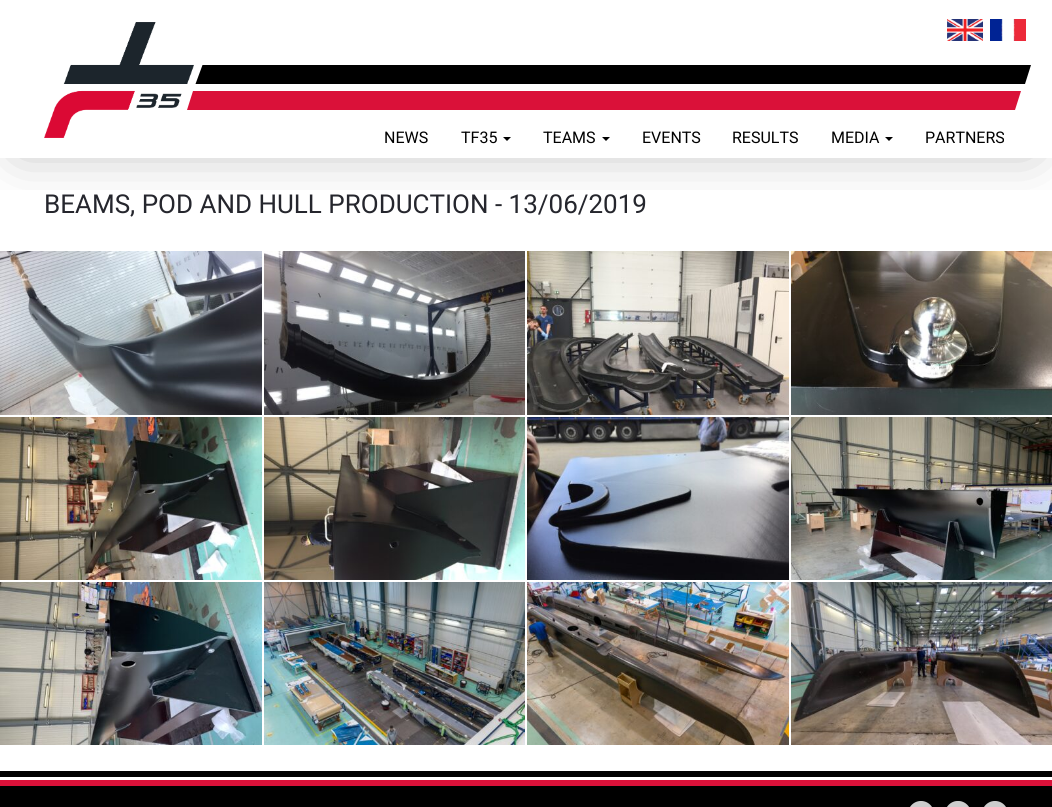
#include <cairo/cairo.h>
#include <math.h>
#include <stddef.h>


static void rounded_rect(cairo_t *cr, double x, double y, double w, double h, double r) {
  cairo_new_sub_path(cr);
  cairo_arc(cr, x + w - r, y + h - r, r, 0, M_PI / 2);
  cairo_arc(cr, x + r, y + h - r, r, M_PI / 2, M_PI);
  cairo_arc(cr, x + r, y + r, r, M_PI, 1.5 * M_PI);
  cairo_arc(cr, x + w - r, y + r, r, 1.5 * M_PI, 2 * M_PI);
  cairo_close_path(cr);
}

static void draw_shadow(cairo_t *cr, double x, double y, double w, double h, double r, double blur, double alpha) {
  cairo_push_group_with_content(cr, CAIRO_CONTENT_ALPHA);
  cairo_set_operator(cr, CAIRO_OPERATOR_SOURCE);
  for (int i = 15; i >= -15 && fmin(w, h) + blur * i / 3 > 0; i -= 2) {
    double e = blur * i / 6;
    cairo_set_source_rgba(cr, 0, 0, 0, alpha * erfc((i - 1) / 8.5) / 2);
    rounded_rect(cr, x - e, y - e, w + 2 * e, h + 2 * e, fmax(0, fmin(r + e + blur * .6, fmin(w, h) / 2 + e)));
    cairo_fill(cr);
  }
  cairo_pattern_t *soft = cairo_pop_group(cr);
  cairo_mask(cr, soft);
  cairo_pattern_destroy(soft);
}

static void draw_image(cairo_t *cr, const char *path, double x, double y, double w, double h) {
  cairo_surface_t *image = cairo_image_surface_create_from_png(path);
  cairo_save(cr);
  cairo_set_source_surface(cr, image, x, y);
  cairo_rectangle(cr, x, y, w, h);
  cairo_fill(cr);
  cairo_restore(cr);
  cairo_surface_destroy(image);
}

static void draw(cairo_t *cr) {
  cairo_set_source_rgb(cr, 1, 1, 1);
  cairo_paint(cr);
  cairo_save(cr);
  cairo_rectangle(cr, 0, 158, 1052, 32);
  cairo_clip(cr);
  cairo_set_source_rgb(cr, 0, 0, 0);
  draw_shadow(cr, 19, 29, 1014, 120, 0, 28, 0.28);
  cairo_restore(cr);
  draw_image(cr, "images/1.png", 44, 22, 150, 116);
  draw_image(cr, "images/2.png", 947, 19, 36, 22);
  draw_image(cr, "images/3.png", 990, 19, 36, 22);
  cairo_set_source_rgb(cr, 0, 0, 0);
  cairo_rectangle(cr, 225, 65, 766, 19);
  cairo_fill(cr);
  cairo_new_path(cr);
  cairo_move_to(cr, 202.5, 65);
  cairo_line_to(cr, 232.5, 65);
  cairo_line_to(cr, 225.5, 84);
  cairo_line_to(cr, 195.5, 84);
  cairo_close_path(cr);
  cairo_fill(cr);
  cairo_new_path(cr);
  cairo_move_to(cr, 991, 65);
  cairo_line_to(cr, 1031, 65);
  cairo_line_to(cr, 1025, 84);
  cairo_line_to(cr, 985, 84);
  cairo_close_path(cr);
  cairo_fill(cr);
  cairo_set_source_rgb(cr, 218 / 255.0, 17 / 255.0, 57 / 255.0);
  cairo_rectangle(cr, 227, 91, 754, 19);
  cairo_fill(cr);
  cairo_new_path(cr);
  cairo_move_to(cr, 193, 91);
  cairo_line_to(cr, 233, 91);
  cairo_line_to(cr, 227, 110);
  cairo_line_to(cr, 187, 110);
  cairo_close_path(cr);
  cairo_fill(cr);
  cairo_new_path(cr);
  cairo_move_to(cr, 981, 91);
  cairo_line_to(cr, 1021, 91);
  cairo_line_to(cr, 1015, 110);
  cairo_line_to(cr, 975, 110);
  cairo_close_path(cr);
  cairo_fill(cr);
  cairo_set_source_rgb(cr, 0, 0, 0);
  cairo_new_path(cr);
  cairo_move_to(cr, 503, 137);
  cairo_line_to(cr, 511, 137);
  cairo_line_to(cr, 507, 141);
  cairo_close_path(cr);
  cairo_fill(cr);
  cairo_new_path(cr);
  cairo_move_to(cr, 602, 137);
  cairo_line_to(cr, 610, 137);
  cairo_line_to(cr, 606, 141);
  cairo_close_path(cr);
  cairo_fill(cr);
  cairo_new_path(cr);
  cairo_move_to(cr, 885, 137);
  cairo_line_to(cr, 893, 137);
  cairo_line_to(cr, 889, 141);
  cairo_close_path(cr);
  cairo_fill(cr);
  draw_image(cr, "images/4.png", 0, 251, 262, 164);
  draw_image(cr, "images/5.png", 264, 251, 261, 164);
  draw_image(cr, "images/6.png", 527, 251, 262, 164);
  draw_image(cr, "images/7.png", 791, 251, 261, 164);
  draw_image(cr, "images/8.png", 0, 417, 262, 163);
  draw_image(cr, "images/9.png", 264, 417, 261, 163);
  draw_image(cr, "images/10.png", 527, 417, 262, 163);
  draw_image(cr, "images/11.png", 791, 417, 261, 163);
  draw_image(cr, "images/12.png", 0, 582, 262, 163);
  draw_image(cr, "images/13.png", 264, 582, 261, 163);
  draw_image(cr, "images/14.png", 527, 582, 262, 163);
  draw_image(cr, "images/15.png", 791, 582, 261, 163);
  cairo_set_source_rgb(cr, 218 / 255.0, 17 / 255.0, 57 / 255.0);
  cairo_rectangle(cr, 0, 780, 1052, 6);
  cairo_fill(cr);
  cairo_set_source_rgb(cr, 0, 0, 0);
  cairo_rectangle(cr, 0, 771, 1052, 6);
  cairo_fill(cr);
  cairo_rectangle(cr, 0, 786, 1052, 21);
  cairo_fill(cr);
  draw_image(cr, "images/16.png", 910, 801, 22, 6);
  draw_image(cr, "images/17.png", 947, 801, 22, 6);
  draw_image(cr, "images/16.png", 984, 801, 22, 6);
  cairo_select_font_face(cr, "Roboto", CAIRO_FONT_SLANT_NORMAL, CAIRO_FONT_WEIGHT_NORMAL);
  cairo_set_font_size(cr, 16);
  cairo_move_to(cr, 384, 143);
  cairo_show_text(cr, "NEWS");
  cairo_move_to(cr, 461, 143);
  cairo_show_text(cr, "TF35");
  cairo_move_to(cr, 543, 143);
  cairo_show_text(cr, "TEAMS");
  cairo_move_to(cr, 642, 143);
  cairo_show_text(cr, "EVENTS");
  cairo_move_to(cr, 732, 143);
  cairo_show_text(cr, "RESULTS");
  cairo_move_to(cr, 831, 143);
  cairo_show_text(cr, "MEDIA");
  cairo_move_to(cr, 925, 143);
  cairo_show_text(cr, "PARTNERS");
  cairo_set_font_size(cr, 26);
  cairo_set_source_rgb(cr, 37 / 255.0, 38 / 255.0, 45 / 255.0);
  cairo_move_to(cr, 44, 213);
  cairo_show_text(cr, "BEAMS, POD AND HULL PRODUCTION - 13/06/2019");
}

int main(void) {
  cairo_surface_t *surface = cairo_image_surface_create(CAIRO_FORMAT_RGB24, 1052, 807);
  cairo_t *cr = cairo_create(surface);
  cairo_font_options_t *options = cairo_font_options_create();
  cairo_font_options_set_hint_metrics(options, CAIRO_HINT_METRICS_OFF);
  cairo_font_options_set_hint_style(options, CAIRO_HINT_STYLE_NONE);
  cairo_set_font_options(cr, options);
  cairo_set_miter_limit(cr, 4);
  draw(cr);
  cairo_surface_write_to_png(surface, "out.png");
  cairo_font_options_destroy(options);
  cairo_destroy(cr);
  cairo_surface_destroy(surface);
  return 0;
}
